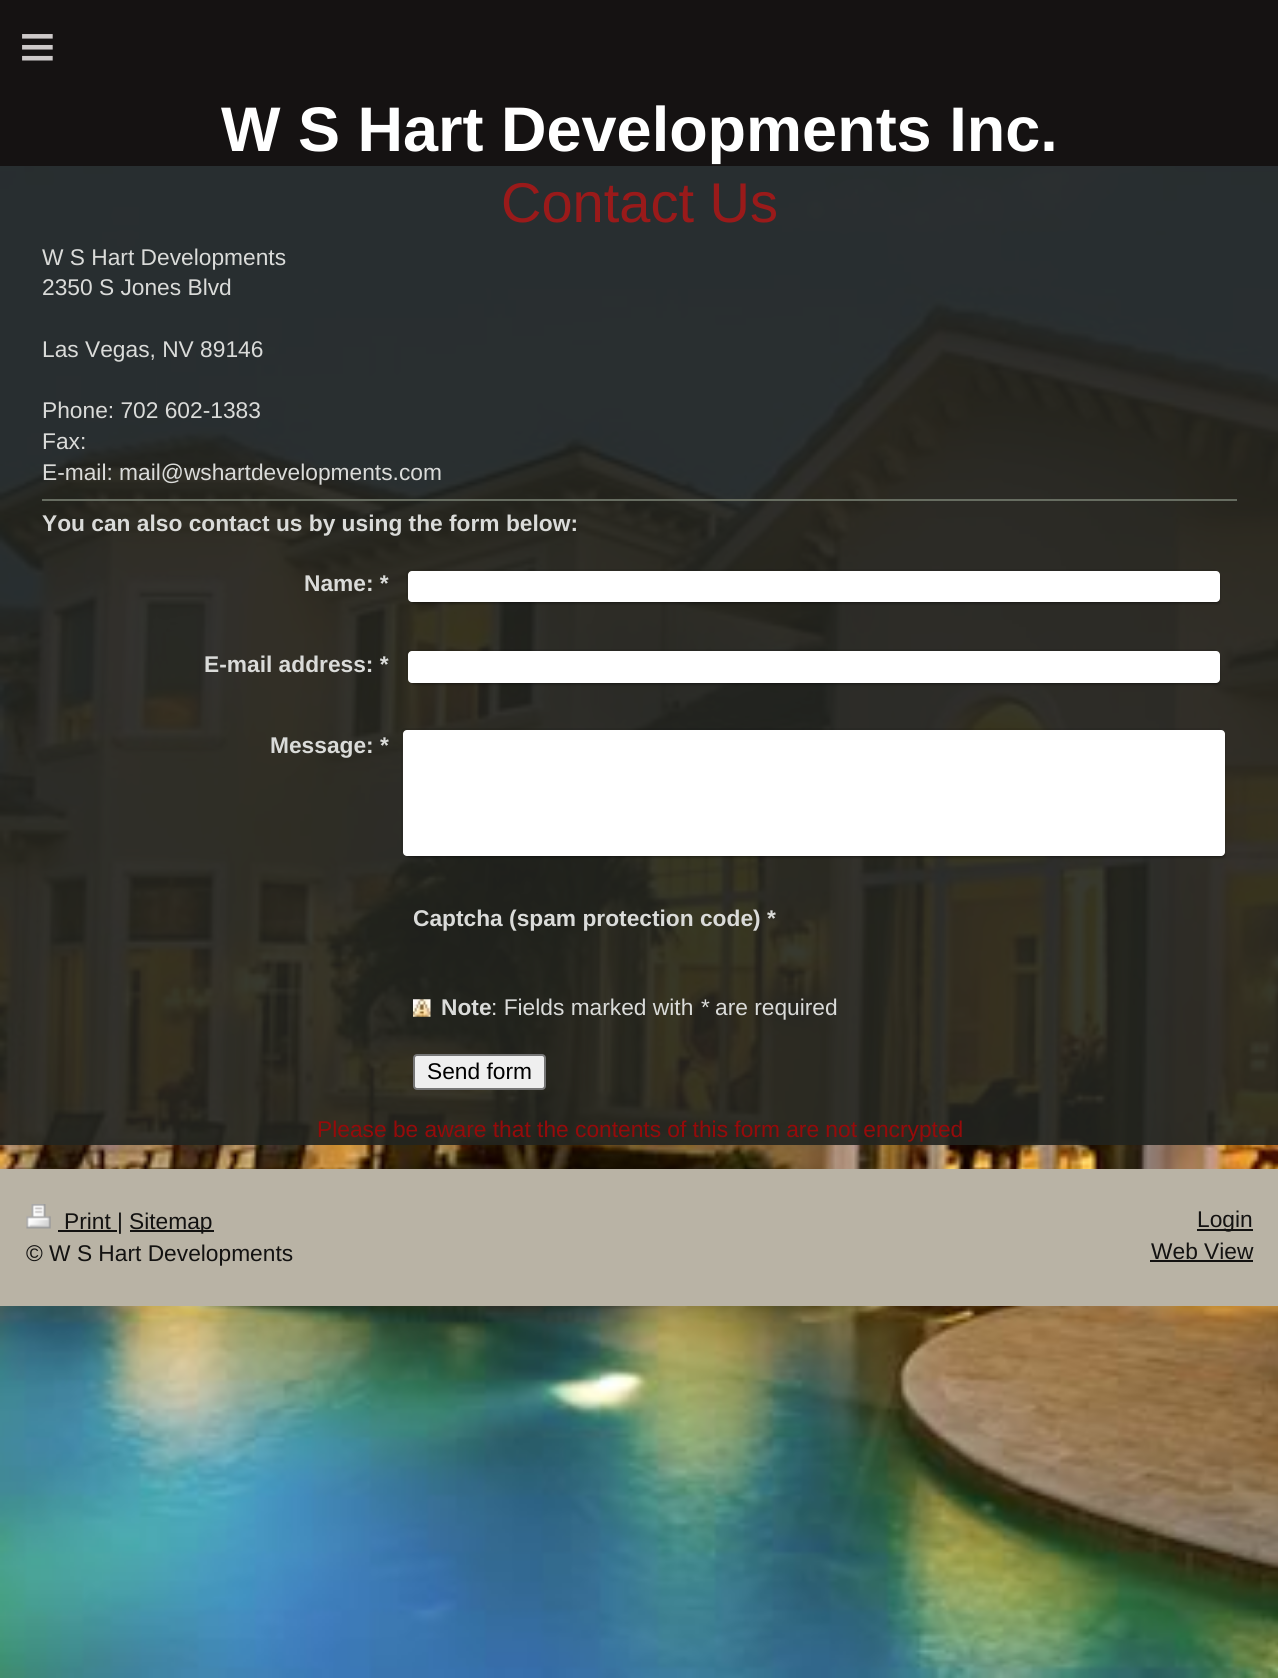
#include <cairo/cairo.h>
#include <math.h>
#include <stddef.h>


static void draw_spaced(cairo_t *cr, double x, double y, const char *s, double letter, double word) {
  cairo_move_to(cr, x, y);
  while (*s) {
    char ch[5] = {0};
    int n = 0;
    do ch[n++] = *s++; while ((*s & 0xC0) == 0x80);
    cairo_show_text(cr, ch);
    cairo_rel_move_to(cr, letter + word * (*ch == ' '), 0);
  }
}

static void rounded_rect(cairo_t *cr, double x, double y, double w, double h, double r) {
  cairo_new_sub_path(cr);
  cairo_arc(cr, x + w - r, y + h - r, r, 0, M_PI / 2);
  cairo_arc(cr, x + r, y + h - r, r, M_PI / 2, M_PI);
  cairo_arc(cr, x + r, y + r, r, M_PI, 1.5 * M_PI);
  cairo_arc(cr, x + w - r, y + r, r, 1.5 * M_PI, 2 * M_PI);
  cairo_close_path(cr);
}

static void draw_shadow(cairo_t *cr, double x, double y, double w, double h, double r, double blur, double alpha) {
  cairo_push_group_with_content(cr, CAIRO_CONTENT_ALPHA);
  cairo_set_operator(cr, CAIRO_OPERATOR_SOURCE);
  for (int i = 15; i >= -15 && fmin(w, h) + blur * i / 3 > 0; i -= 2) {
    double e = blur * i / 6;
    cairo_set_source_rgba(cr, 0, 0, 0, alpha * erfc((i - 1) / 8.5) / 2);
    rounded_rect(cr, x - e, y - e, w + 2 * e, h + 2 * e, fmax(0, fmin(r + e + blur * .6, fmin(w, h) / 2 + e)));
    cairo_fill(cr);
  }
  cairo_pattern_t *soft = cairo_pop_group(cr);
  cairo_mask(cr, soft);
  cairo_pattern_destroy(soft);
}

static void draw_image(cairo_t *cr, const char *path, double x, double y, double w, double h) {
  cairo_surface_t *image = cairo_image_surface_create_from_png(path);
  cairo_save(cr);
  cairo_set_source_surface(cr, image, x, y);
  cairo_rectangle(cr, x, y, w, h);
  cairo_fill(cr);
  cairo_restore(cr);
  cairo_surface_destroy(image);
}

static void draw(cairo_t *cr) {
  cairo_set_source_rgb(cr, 1, 1, 1);
  cairo_paint(cr);
  draw_image(cr, "images/1.png", 0, 166, 1278, 1512);
  cairo_set_source_rgb(cr, 21 / 255.0, 18 / 255.0, 18 / 255.0);
  cairo_rectangle(cr, 0, 0, 1278, 166);
  cairo_fill(cr);
  cairo_set_source_rgba(cr, 34 / 255.0, 36 / 255.0, 32 / 255.0, 0.9);
  cairo_rectangle(cr, 0, 166, 1278, 979);
  cairo_fill(cr);
  cairo_set_source_rgb(cr, 103 / 255.0, 109 / 255.0, 97 / 255.0);
  cairo_rectangle(cr, 42, 499, 1195, 2);
  cairo_fill(cr);
  cairo_set_source_rgba(cr, 0, 0, 0, 0.08);
  cairo_new_path(cr);
  cairo_move_to(cr, 410, 569);
  cairo_curve_to(cr, 408, 569, 406, 571, 406, 573);
  cairo_line_to(cr, 406, 596);
  cairo_curve_to(cr, 406, 597, 407, 599, 408, 599);
  cairo_line_to(cr, 408, 578);
  cairo_curve_to(cr, 408, 575, 407, 571, 411, 570);
  cairo_line_to(cr, 1217, 571);
  cairo_curve_to(cr, 1217, 570, 1215, 569, 1214, 569);
  cairo_close_path(cr);
  cairo_fill(cr);
  cairo_set_source_rgb(cr, 0, 0, 0);
  draw_shadow(cr, 413, 578, 805, 24, 0, 2, 0.8);
  cairo_set_source_rgb(cr, 1, 1, 1);
  rounded_rect(cr, 408, 571, 812, 31, 4);
  cairo_fill(cr);
  cairo_set_source_rgba(cr, 0, 0, 0, 0.08);
  cairo_new_path(cr);
  cairo_move_to(cr, 410, 649);
  cairo_curve_to(cr, 408, 649, 406, 651, 406, 653);
  cairo_line_to(cr, 406, 677);
  cairo_curve_to(cr, 406, 679, 407, 680, 408, 681);
  cairo_line_to(cr, 408, 659);
  cairo_curve_to(cr, 408, 656, 407, 651, 411, 651);
  cairo_line_to(cr, 1218, 651);
  cairo_curve_to(cr, 1217, 650, 1216, 649, 1214, 649);
  cairo_close_path(cr);
  cairo_fill(cr);
  cairo_set_source_rgb(cr, 0, 0, 0);
  draw_shadow(cr, 413, 658, 805, 25, 0, 2, 0.8);
  cairo_set_source_rgb(cr, 1, 1, 1);
  rounded_rect(cr, 408, 651, 812, 32, 4);
  cairo_fill(cr);
  cairo_set_source_rgba(cr, 0, 0, 0, 0.08);
  cairo_new_path(cr);
  cairo_move_to(cr, 405, 728);
  cairo_curve_to(cr, 403, 728, 401, 730, 401, 732);
  cairo_line_to(cr, 401, 850);
  cairo_curve_to(cr, 401, 851, 402, 853, 403, 853);
  cairo_line_to(cr, 402, 753);
  cairo_curve_to(cr, 402, 746, 399, 730, 406, 730);
  cairo_line_to(cr, 1222, 730);
  cairo_curve_to(cr, 1222, 729, 1220, 728, 1219, 728);
  cairo_close_path(cr);
  cairo_fill(cr);
  cairo_set_source_rgb(cr, 0, 0, 0);
  draw_shadow(cr, 408, 737, 815, 119, 0, 2, 0.8);
  cairo_set_source_rgb(cr, 1, 1, 1);
  rounded_rect(cr, 403, 730, 822, 126, 4);
  cairo_fill(cr);
  draw_image(cr, "images/2.png", 413, 999, 18, 18);
  cairo_set_source_rgb(cr, 239 / 255.0, 239 / 255.0, 239 / 255.0);
  rounded_rect(cr, 414, 1055, 131, 34, 3);
  cairo_fill_preserve(cr);
  cairo_set_source_rgb(cr, 118 / 255.0, 118 / 255.0, 118 / 255.0);
  cairo_stroke(cr);
  cairo_set_source_rgb(cr, 185 / 255.0, 179 / 255.0, 165 / 255.0);
  cairo_rectangle(cr, 0, 1169, 1278, 137);
  cairo_fill(cr);
  draw_image(cr, "images/3.png", 26, 1204, 25, 25);
  cairo_set_source_rgb(cr, 19 / 255.0, 18 / 255.0, 17 / 255.0);
  cairo_rectangle(cr, 58, 1230, 59, 2);
  cairo_fill(cr);
  cairo_rectangle(cr, 130, 1230, 84, 2);
  cairo_fill(cr);
  cairo_rectangle(cr, 1197, 1229, 56, 2);
  cairo_fill(cr);
  cairo_rectangle(cr, 1150, 1260, 103, 2);
  cairo_fill(cr);
  cairo_select_font_face(cr, "Liberation Sans", CAIRO_FONT_SLANT_NORMAL, CAIRO_FONT_WEIGHT_NORMAL);
  cairo_set_font_size(cr, 63);
  cairo_set_source_rgb(cr, 205 / 255.0, 201 / 255.0, 201 / 255.0);
  draw_spaced(cr, 19, 68, "≡", 18, 0);
  cairo_select_font_face(cr, "Liberation Sans", CAIRO_FONT_SLANT_NORMAL, CAIRO_FONT_WEIGHT_BOLD);
  cairo_set_source_rgb(cr, 1, 1, 1);
  cairo_move_to(cr, 221, 151);
  cairo_show_text(cr, "W S Hart Developments Inc.");
  cairo_select_font_face(cr, "Liberation Sans", CAIRO_FONT_SLANT_NORMAL, CAIRO_FONT_WEIGHT_NORMAL);
  cairo_set_font_size(cr, 56);
  cairo_set_source_rgb(cr, 154 / 255.0, 26 / 255.0, 26 / 255.0);
  cairo_move_to(cr, 501, 222);
  cairo_show_text(cr, "Contact Us");
  cairo_set_font_size(cr, 22.75);
  cairo_set_source_rgb(cr, 218 / 255.0, 219 / 255.0, 217 / 255.0);
  cairo_move_to(cr, 42, 265);
  cairo_show_text(cr, "W S Hart Developments");
  cairo_move_to(cr, 42, 295);
  cairo_show_text(cr, "2350 S Jones Blvd");
  cairo_move_to(cr, 42, 357);
  cairo_show_text(cr, "Las Vegas, NV 89146");
  cairo_move_to(cr, 42, 418);
  cairo_show_text(cr, "Phone: 702 602-1383");
  cairo_move_to(cr, 42, 449);
  cairo_show_text(cr, "Fax:");
  cairo_move_to(cr, 42, 480);
  cairo_show_text(cr, "E-mail: mail@wshartdevelopments.com");
  cairo_select_font_face(cr, "Liberation Sans", CAIRO_FONT_SLANT_NORMAL, CAIRO_FONT_WEIGHT_BOLD);
  cairo_move_to(cr, 42, 531);
  cairo_show_text(cr, "You can also contact us by using the form below:");
  cairo_move_to(cr, 304, 591);
  cairo_show_text(cr, "Name: *");
  cairo_move_to(cr, 204, 672);
  cairo_show_text(cr, "E-mail address: *");
  cairo_move_to(cr, 270, 753);
  cairo_show_text(cr, "Message: *");
  cairo_move_to(cr, 413, 926);
  cairo_show_text(cr, "Captcha (spam protection code) *");
  cairo_move_to(cr, 441, 1015);
  cairo_show_text(cr, "Note");
  cairo_select_font_face(cr, "Liberation Sans", CAIRO_FONT_SLANT_NORMAL, CAIRO_FONT_WEIGHT_NORMAL);
  cairo_move_to(cr, 491, 1015);
  cairo_show_text(cr, ": Fields marked with");
  cairo_select_font_face(cr, "Liberation Sans", CAIRO_FONT_SLANT_ITALIC, CAIRO_FONT_WEIGHT_NORMAL);
  cairo_move_to(cr, 700, 1015);
  cairo_show_text(cr, "*");
  cairo_select_font_face(cr, "Liberation Sans", CAIRO_FONT_SLANT_NORMAL, CAIRO_FONT_WEIGHT_NORMAL);
  cairo_move_to(cr, 715, 1015);
  cairo_show_text(cr, "are required");
  cairo_set_source_rgb(cr, 0, 0, 0);
  cairo_move_to(cr, 427, 1079);
  cairo_show_text(cr, "Send form");
  cairo_set_source_rgb(cr, 150 / 255.0, 10 / 255.0, 10 / 255.0);
  cairo_move_to(cr, 317, 1137);
  cairo_show_text(cr, "Please be aware that the contents of this form are not encrypted");
  cairo_set_source_rgb(cr, 19 / 255.0, 18 / 255.0, 17 / 255.0);
  cairo_move_to(cr, 64, 1229);
  cairo_show_text(cr, "Print |");
  cairo_move_to(cr, 129, 1229);
  cairo_show_text(cr, "Sitemap");
  cairo_move_to(cr, 26, 1261);
  cairo_show_text(cr, "© W S Hart Developments");
  cairo_move_to(cr, 1197, 1227);
  cairo_show_text(cr, "Login");
  cairo_move_to(cr, 1151, 1259);
  cairo_show_text(cr, "Web View");
}

int main(void) {
  cairo_surface_t *surface = cairo_image_surface_create(CAIRO_FORMAT_RGB24, 1278, 1678);
  cairo_t *cr = cairo_create(surface);
  cairo_font_options_t *options = cairo_font_options_create();
  cairo_font_options_set_hint_metrics(options, CAIRO_HINT_METRICS_OFF);
  cairo_font_options_set_hint_style(options, CAIRO_HINT_STYLE_NONE);
  cairo_set_font_options(cr, options);
  cairo_set_miter_limit(cr, 4);
  draw(cr);
  cairo_surface_write_to_png(surface, "out.png");
  cairo_font_options_destroy(options);
  cairo_destroy(cr);
  cairo_surface_destroy(surface);
  return 0;
}
